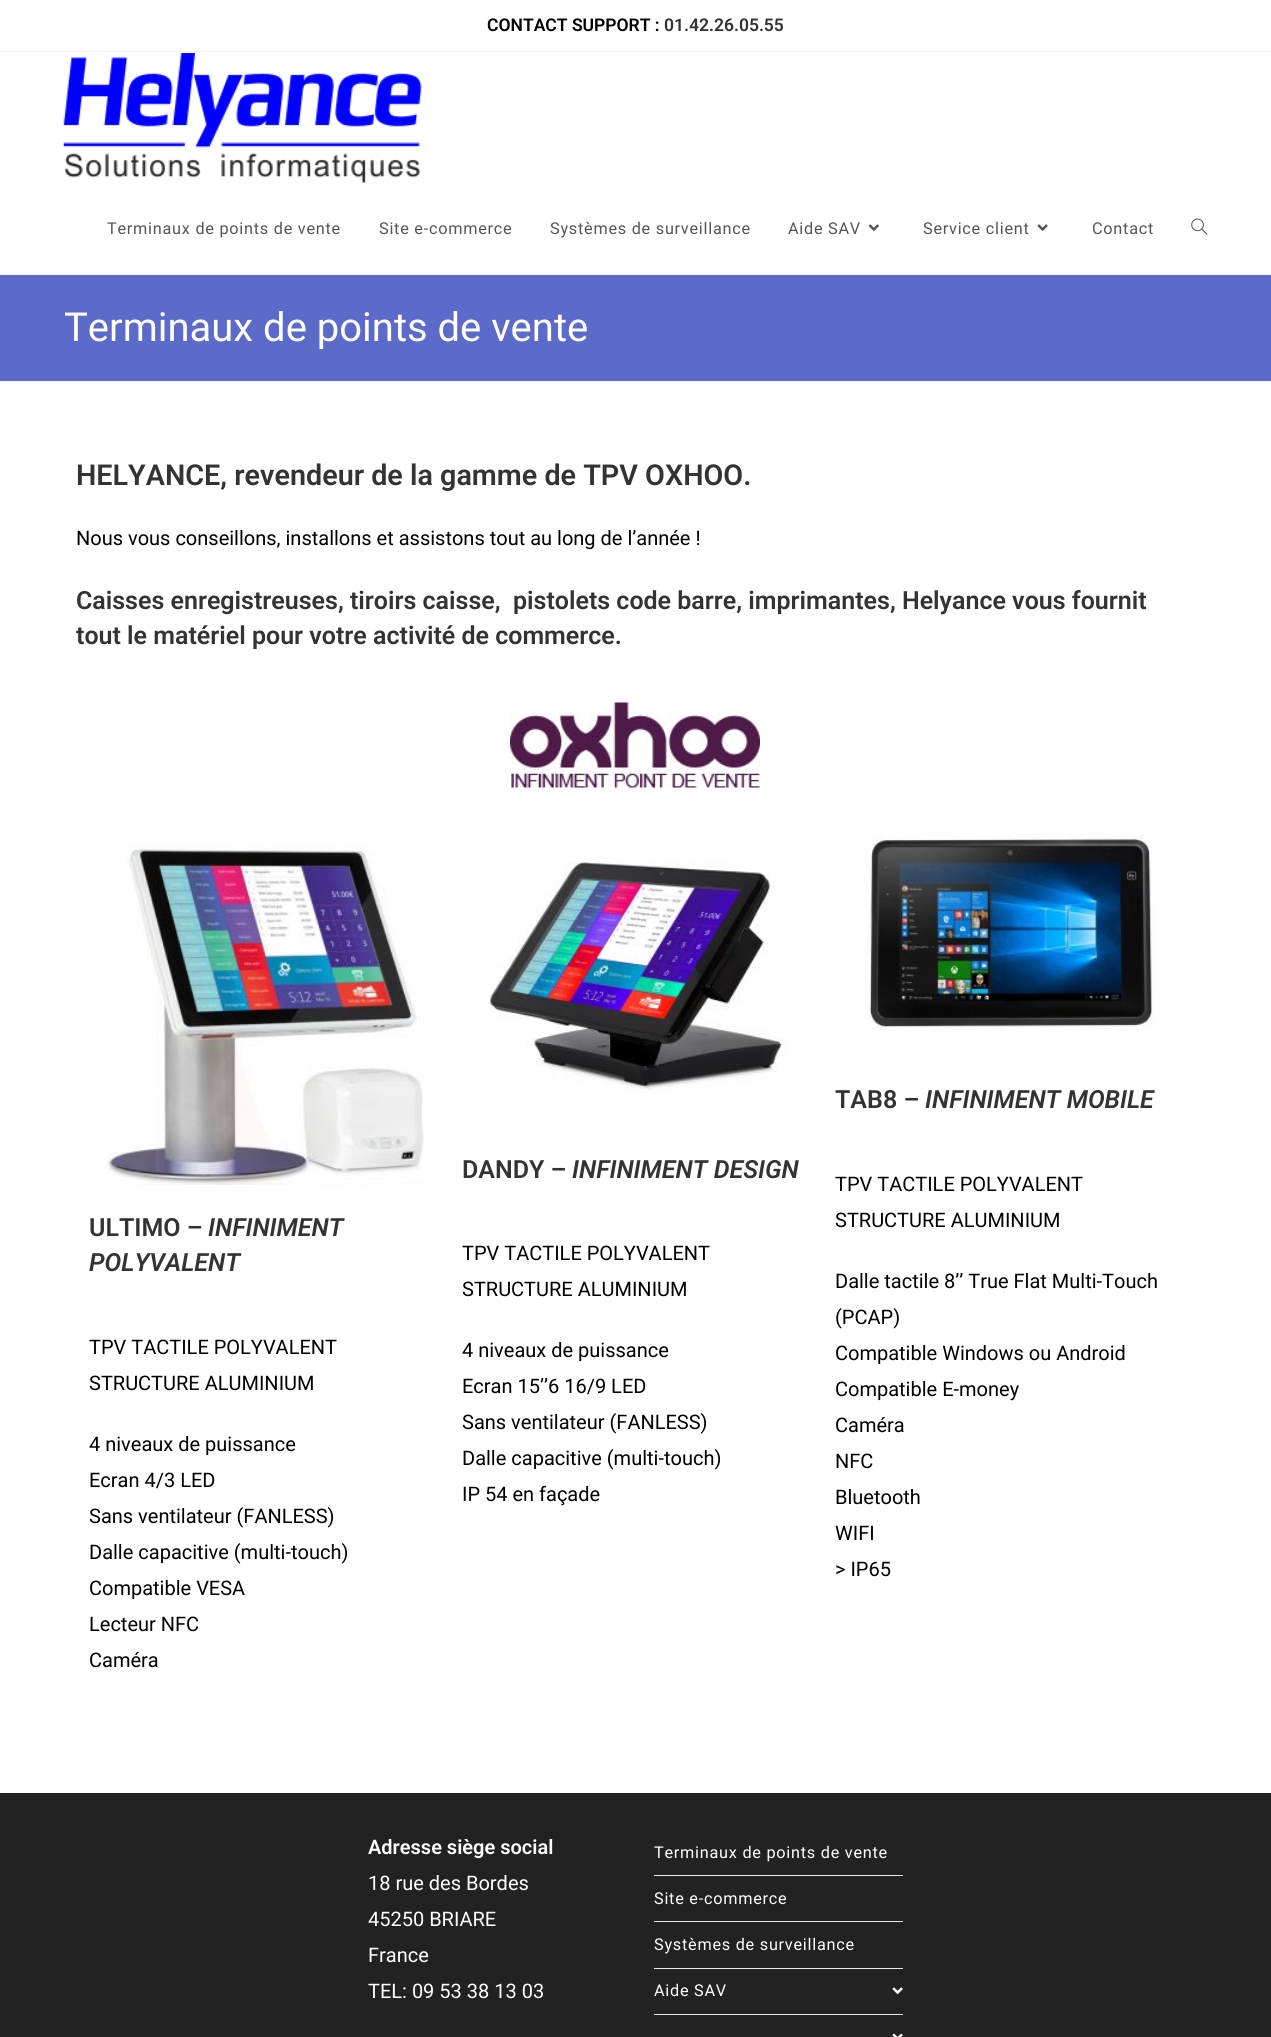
#include <cairo/cairo.h>
#include <math.h>
#include <stddef.h>


static void draw_spaced(cairo_t *cr, double x, double y, const char *s, double letter, double word) {
  cairo_move_to(cr, x, y);
  while (*s) {
    char ch[5] = {0};
    int n = 0;
    do ch[n++] = *s++; while ((*s & 0xC0) == 0x80);
    cairo_show_text(cr, ch);
    cairo_rel_move_to(cr, letter + word * (*ch == ' '), 0);
  }
}

static void draw_image(cairo_t *cr, const char *path, double x, double y, double w, double h) {
  cairo_surface_t *image = cairo_image_surface_create_from_png(path);
  cairo_save(cr);
  cairo_set_source_surface(cr, image, x, y);
  cairo_rectangle(cr, x, y, w, h);
  cairo_fill(cr);
  cairo_restore(cr);
  cairo_surface_destroy(image);
}

static void draw(cairo_t *cr) {
  cairo_set_source_rgb(cr, 1, 1, 1);
  cairo_paint(cr);
  cairo_set_source_rgb(cr, 241 / 255.0, 241 / 255.0, 241 / 255.0);
  cairo_rectangle(cr, 0, 51, 1271, 1);
  cairo_fill(cr);
  draw_image(cr, "images/1.png", 63, 53, 359, 130);
  draw_image(cr, "images/2.png", 868, 224, 11, 7);
  draw_image(cr, "images/3.png", 1037, 224, 11, 7);
  draw_image(cr, "images/4.png", 1191, 218, 17, 17);
  cairo_set_source_rgb(cr, 92 / 255.0, 107 / 255.0, 201 / 255.0);
  cairo_rectangle(cr, 0, 275, 1271, 106);
  cairo_fill(cr);
  draw_image(cr, "images/5.png", 510, 702, 250, 86);
  draw_image(cr, "images/6.png", 106, 844, 318, 341);
  draw_image(cr, "images/7.png", 489, 862, 298, 230);
  draw_image(cr, "images/8.png", 864, 835, 292, 195);
  cairo_set_source_rgb(cr, 34 / 255.0, 34 / 255.0, 34 / 255.0);
  cairo_rectangle(cr, 0, 1793, 1271, 244);
  cairo_fill(cr);
  cairo_set_source_rgb(cr, 233 / 255.0, 233 / 255.0, 233 / 255.0);
  cairo_rectangle(cr, 654, 1875, 249, 1);
  cairo_fill(cr);
  cairo_rectangle(cr, 654, 1921, 249, 1);
  cairo_fill(cr);
  cairo_rectangle(cr, 654, 1968, 249, 1);
  cairo_fill(cr);
  cairo_rectangle(cr, 654, 2014, 249, 1);
  cairo_fill(cr);
  draw_image(cr, "images/9.png", 892, 1987, 11, 7);
  draw_image(cr, "images/10.png", 892, 2033, 11, 4);
  cairo_select_font_face(cr, "Roboto SemiBold", CAIRO_FONT_SLANT_NORMAL, CAIRO_FONT_WEIGHT_NORMAL);
  cairo_set_font_size(cr, 17.5);
  cairo_set_source_rgb(cr, 0, 0, 0);
  cairo_move_to(cr, 487, 31);
  cairo_show_text(cr, "CONTACT SUPPORT :");
  cairo_set_source_rgb(cr, 51 / 255.0, 51 / 255.0, 51 / 255.0);
  cairo_move_to(cr, 664, 31);
  cairo_show_text(cr, "01.42.26.05.55");
  cairo_select_font_face(cr, "Roboto", CAIRO_FONT_SLANT_NORMAL, CAIRO_FONT_WEIGHT_NORMAL);
  cairo_set_font_size(cr, 16.25);
  cairo_set_source_rgb(cr, 85 / 255.0, 85 / 255.0, 85 / 255.0);
  draw_spaced(cr, 107, 234, "Terminaux de points de vente", 0.75, 0);
  draw_spaced(cr, 379, 234, "Site e-commerce", 0.75, 0);
  draw_spaced(cr, 550, 234, "Systèmes de surveillance", 0.75, 0);
  draw_spaced(cr, 788, 234, "Aide SAV", 0.75, 0);
  draw_spaced(cr, 923, 234, "Service client", 0.75, 0);
  draw_spaced(cr, 1092, 234, "Contact", 0.75, 0);
  cairo_set_font_size(cr, 40);
  cairo_set_source_rgb(cr, 1, 1, 1);
  cairo_move_to(cr, 64, 341);
  cairo_show_text(cr, "Terminaux de points de vente");
  cairo_select_font_face(cr, "Roboto SemiBold", CAIRO_FONT_SLANT_NORMAL, CAIRO_FONT_WEIGHT_NORMAL);
  cairo_set_font_size(cr, 28.75);
  cairo_set_source_rgb(cr, 51 / 255.0, 51 / 255.0, 51 / 255.0);
  cairo_move_to(cr, 76, 485);
  cairo_show_text(cr, "HELYANCE, revendeur de la gamme de TPV OXHOO.");
  cairo_select_font_face(cr, "Roboto", CAIRO_FONT_SLANT_NORMAL, CAIRO_FONT_WEIGHT_NORMAL);
  cairo_set_font_size(cr, 20);
  cairo_set_source_rgb(cr, 0, 0, 0);
  cairo_move_to(cr, 76, 545);
  cairo_show_text(cr, "Nous vous conseillons, installons et assistons tout au long de l’année !");
  cairo_select_font_face(cr, "Roboto SemiBold", CAIRO_FONT_SLANT_NORMAL, CAIRO_FONT_WEIGHT_NORMAL);
  cairo_set_font_size(cr, 25);
  cairo_set_source_rgb(cr, 51 / 255.0, 51 / 255.0, 51 / 255.0);
  cairo_move_to(cr, 76, 609);
  cairo_show_text(cr, "Caisses enregistreuses, tiroirs caisse,  pistolets code barre, imprimantes, Helyance vous fournit");
  cairo_move_to(cr, 76, 644);
  cairo_show_text(cr, "tout le matériel pour votre activité de commerce.");
  cairo_move_to(cr, 89, 1236);
  cairo_show_text(cr, "ULTIMO –");
  cairo_select_font_face(cr, "Roboto SemiBold", CAIRO_FONT_SLANT_ITALIC, CAIRO_FONT_WEIGHT_NORMAL);
  cairo_move_to(cr, 208, 1236);
  cairo_show_text(cr, "INFINIMENT");
  cairo_move_to(cr, 89, 1271);
  cairo_show_text(cr, "POLYVALENT");
  cairo_select_font_face(cr, "Roboto", CAIRO_FONT_SLANT_NORMAL, CAIRO_FONT_WEIGHT_NORMAL);
  cairo_set_font_size(cr, 20);
  cairo_set_source_rgb(cr, 0, 0, 0);
  cairo_move_to(cr, 89, 1354);
  cairo_show_text(cr, "TPV TACTILE POLYVALENT");
  cairo_move_to(cr, 89, 1390);
  cairo_show_text(cr, "STRUCTURE ALUMINIUM");
  cairo_move_to(cr, 89, 1451);
  cairo_show_text(cr, "4 niveaux de puissance");
  cairo_move_to(cr, 89, 1487);
  cairo_show_text(cr, "Ecran 4/3 LED");
  cairo_move_to(cr, 89, 1523);
  cairo_show_text(cr, "Sans ventilateur (FANLESS)");
  cairo_move_to(cr, 89, 1559);
  cairo_show_text(cr, "Dalle capacitive (multi-touch)");
  cairo_move_to(cr, 89, 1595);
  cairo_show_text(cr, "Compatible VESA");
  cairo_move_to(cr, 89, 1631);
  cairo_show_text(cr, "Lecteur NFC");
  cairo_move_to(cr, 89, 1667);
  cairo_show_text(cr, "Caméra");
  cairo_select_font_face(cr, "Roboto SemiBold", CAIRO_FONT_SLANT_NORMAL, CAIRO_FONT_WEIGHT_NORMAL);
  cairo_set_font_size(cr, 25);
  cairo_set_source_rgb(cr, 51 / 255.0, 51 / 255.0, 51 / 255.0);
  cairo_move_to(cr, 462, 1178);
  cairo_show_text(cr, "DANDY –");
  cairo_select_font_face(cr, "Roboto SemiBold", CAIRO_FONT_SLANT_ITALIC, CAIRO_FONT_WEIGHT_NORMAL);
  cairo_move_to(cr, 572, 1178);
  cairo_show_text(cr, "INFINIMENT DESIGN");
  cairo_select_font_face(cr, "Roboto", CAIRO_FONT_SLANT_NORMAL, CAIRO_FONT_WEIGHT_NORMAL);
  cairo_set_font_size(cr, 20);
  cairo_set_source_rgb(cr, 0, 0, 0);
  cairo_move_to(cr, 462, 1260);
  cairo_show_text(cr, "TPV TACTILE POLYVALENT");
  cairo_move_to(cr, 462, 1296);
  cairo_show_text(cr, "STRUCTURE ALUMINIUM");
  cairo_move_to(cr, 462, 1357);
  cairo_show_text(cr, "4 niveaux de puissance");
  cairo_move_to(cr, 462, 1393);
  cairo_show_text(cr, "Ecran 15’’6 16/9 LED");
  cairo_move_to(cr, 462, 1429);
  cairo_show_text(cr, "Sans ventilateur (FANLESS)");
  cairo_move_to(cr, 462, 1465);
  cairo_show_text(cr, "Dalle capacitive (multi-touch)");
  cairo_move_to(cr, 462, 1501);
  cairo_show_text(cr, "IP 54 en façade");
  cairo_select_font_face(cr, "Roboto SemiBold", CAIRO_FONT_SLANT_NORMAL, CAIRO_FONT_WEIGHT_NORMAL);
  cairo_set_font_size(cr, 25);
  cairo_set_source_rgb(cr, 51 / 255.0, 51 / 255.0, 51 / 255.0);
  cairo_move_to(cr, 835, 1108);
  cairo_show_text(cr, "TAB8 –");
  cairo_select_font_face(cr, "Roboto SemiBold", CAIRO_FONT_SLANT_ITALIC, CAIRO_FONT_WEIGHT_NORMAL);
  cairo_move_to(cr, 925, 1108);
  cairo_show_text(cr, "INFINIMENT MOBILE");
  cairo_select_font_face(cr, "Roboto", CAIRO_FONT_SLANT_NORMAL, CAIRO_FONT_WEIGHT_NORMAL);
  cairo_set_font_size(cr, 20);
  cairo_set_source_rgb(cr, 0, 0, 0);
  cairo_move_to(cr, 835, 1191);
  cairo_show_text(cr, "TPV TACTILE POLYVALENT");
  cairo_move_to(cr, 835, 1227);
  cairo_show_text(cr, "STRUCTURE ALUMINIUM");
  cairo_move_to(cr, 835, 1288);
  cairo_show_text(cr, "Dalle tactile 8’’ True Flat Multi-Touch");
  cairo_move_to(cr, 835, 1324);
  cairo_show_text(cr, "(PCAP)");
  cairo_move_to(cr, 835, 1360);
  cairo_show_text(cr, "Compatible Windows ou Android");
  cairo_move_to(cr, 835, 1396);
  cairo_show_text(cr, "Compatible E-money");
  cairo_move_to(cr, 835, 1432);
  cairo_show_text(cr, "Caméra");
  cairo_move_to(cr, 835, 1468);
  cairo_show_text(cr, "NFC");
  cairo_move_to(cr, 835, 1504);
  cairo_show_text(cr, "Bluetooth");
  cairo_move_to(cr, 835, 1540);
  cairo_show_text(cr, "WIFI");
  cairo_move_to(cr, 835, 1576);
  cairo_show_text(cr, "> IP65");
  cairo_select_font_face(cr, "Roboto SemiBold", CAIRO_FONT_SLANT_NORMAL, CAIRO_FONT_WEIGHT_NORMAL);
  cairo_set_source_rgb(cr, 1, 1, 1);
  cairo_move_to(cr, 368, 1854);
  cairo_show_text(cr, "Adresse siège social");
  cairo_select_font_face(cr, "Roboto", CAIRO_FONT_SLANT_NORMAL, CAIRO_FONT_WEIGHT_NORMAL);
  cairo_move_to(cr, 368, 1890);
  cairo_show_text(cr, "18 rue des Bordes");
  cairo_move_to(cr, 368, 1926);
  cairo_show_text(cr, "45250 BRIARE");
  cairo_move_to(cr, 368, 1962);
  cairo_show_text(cr, "France");
  cairo_move_to(cr, 368, 1998);
  cairo_show_text(cr, "TEL: 09 53 38 13 03");
  cairo_set_font_size(cr, 16.25);
  draw_spaced(cr, 654, 1858, "Terminaux de points de vente", 0.75, 0);
  draw_spaced(cr, 654, 1904, "Site e-commerce", 0.75, 0);
  draw_spaced(cr, 654, 1950, "Systèmes de surveillance", 0.75, 0);
  draw_spaced(cr, 654, 1996, "Aide SAV", 0.75, 0);
}

int main(void) {
  cairo_surface_t *surface = cairo_image_surface_create(CAIRO_FORMAT_RGB24, 1271, 2037);
  cairo_t *cr = cairo_create(surface);
  cairo_font_options_t *options = cairo_font_options_create();
  cairo_font_options_set_hint_metrics(options, CAIRO_HINT_METRICS_OFF);
  cairo_font_options_set_hint_style(options, CAIRO_HINT_STYLE_NONE);
  cairo_set_font_options(cr, options);
  cairo_set_miter_limit(cr, 4);
  draw(cr);
  cairo_surface_write_to_png(surface, "out.png");
  cairo_font_options_destroy(options);
  cairo_destroy(cr);
  cairo_surface_destroy(surface);
  return 0;
}
